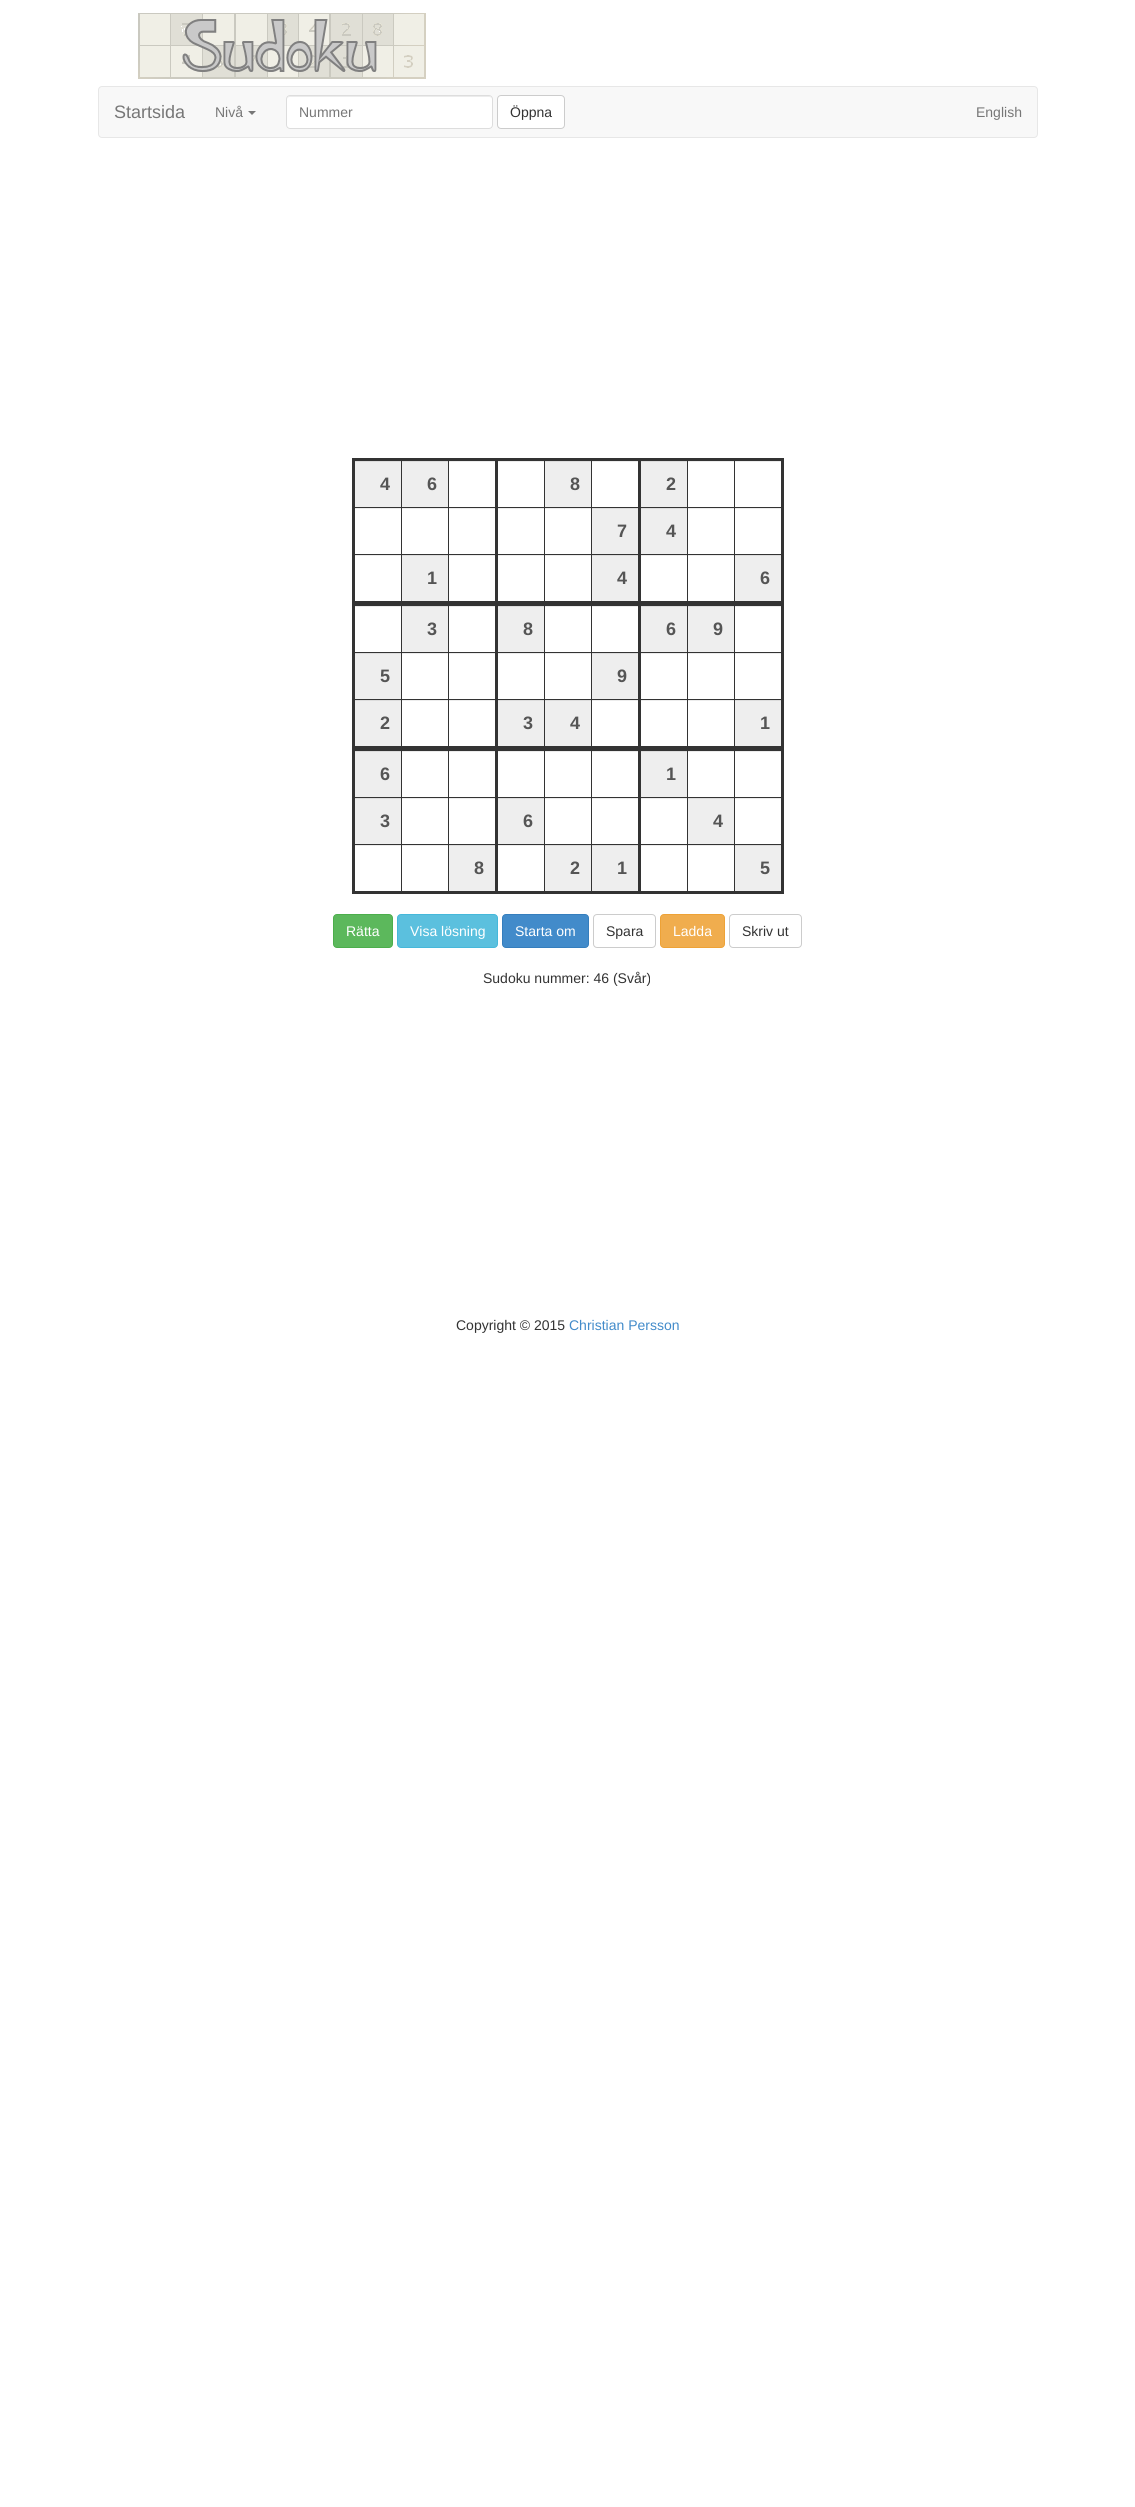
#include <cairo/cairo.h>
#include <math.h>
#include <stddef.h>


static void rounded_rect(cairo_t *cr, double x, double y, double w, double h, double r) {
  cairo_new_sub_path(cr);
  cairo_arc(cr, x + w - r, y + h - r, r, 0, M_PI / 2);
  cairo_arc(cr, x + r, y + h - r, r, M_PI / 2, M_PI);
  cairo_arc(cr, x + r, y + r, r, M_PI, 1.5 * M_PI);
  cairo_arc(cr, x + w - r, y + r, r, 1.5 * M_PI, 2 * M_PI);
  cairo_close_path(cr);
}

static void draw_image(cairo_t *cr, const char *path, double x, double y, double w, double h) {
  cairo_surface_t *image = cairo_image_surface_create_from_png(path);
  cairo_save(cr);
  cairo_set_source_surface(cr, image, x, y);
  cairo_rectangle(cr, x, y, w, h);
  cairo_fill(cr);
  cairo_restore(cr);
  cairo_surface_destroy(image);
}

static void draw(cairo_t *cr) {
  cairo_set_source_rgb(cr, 1, 1, 1);
  cairo_paint(cr);
  draw_image(cr, "images/1.png", 138, 13, 288, 66);
  cairo_set_source_rgb(cr, 248 / 255.0, 248 / 255.0, 248 / 255.0);
  rounded_rect(cr, 98.5, 86.5, 939, 51, 3.5);
  cairo_fill_preserve(cr);
  cairo_set_source_rgb(cr, 231 / 255.0, 231 / 255.0, 231 / 255.0);
  cairo_set_line_width(cr, 1);
  cairo_stroke(cr);
  cairo_set_source_rgb(cr, 119 / 255.0, 119 / 255.0, 119 / 255.0);
  cairo_new_path(cr);
  cairo_move_to(cr, 248, 111);
  cairo_line_to(cr, 256, 111);
  cairo_line_to(cr, 252, 115);
  cairo_close_path(cr);
  cairo_fill(cr);
  cairo_set_source_rgb(cr, 1, 1, 1);
  rounded_rect(cr, 286, 95, 207, 34, 4);
  cairo_fill(cr);
  cairo_set_source_rgb(cr, 236 / 255.0, 236 / 255.0, 236 / 255.0);
  cairo_new_path(cr);
  cairo_move_to(cr, 290, 97);
  cairo_line_to(cr, 489, 97);
  cairo_curve_to(cr, 491, 97, 492, 98, 492, 100);
  cairo_curve_to(cr, 492, 98, 491, 96, 489, 96);
  cairo_line_to(cr, 290, 96);
  cairo_curve_to(cr, 288, 96, 287, 98, 287, 100);
  cairo_curve_to(cr, 287, 98, 288, 97, 290, 97);
  cairo_close_path(cr);
  cairo_fill(cr);
  rounded_rect(cr, 286.5, 95.5, 206, 33, 3.5);
  cairo_set_source_rgb(cr, 221 / 255.0, 221 / 255.0, 221 / 255.0);
  cairo_stroke(cr);
  cairo_set_source_rgb(cr, 1, 1, 1);
  rounded_rect(cr, 497.5, 95.5, 67, 33, 3.5);
  cairo_fill_preserve(cr);
  cairo_set_source_rgb(cr, 204 / 255.0, 204 / 255.0, 204 / 255.0);
  cairo_stroke(cr);
  cairo_set_source_rgb(cr, 51 / 255.0, 51 / 255.0, 51 / 255.0);
  cairo_rectangle(cr, 352, 458, 432, 1);
  cairo_fill(cr);
  cairo_rectangle(cr, 783, 458, 1, 436);
  cairo_fill(cr);
  cairo_rectangle(cr, 352, 893, 432, 1);
  cairo_fill(cr);
  cairo_rectangle(cr, 352, 458, 1, 436);
  cairo_fill(cr);
  cairo_rectangle(cr, 639, 459, 144, 1);
  cairo_fill(cr);
  cairo_rectangle(cr, 782, 459, 1, 144);
  cairo_fill(cr);
  cairo_rectangle(cr, 639, 602, 144, 1);
  cairo_fill(cr);
  cairo_rectangle(cr, 639, 459, 1, 144);
  cairo_fill(cr);
  cairo_rectangle(cr, 496, 459, 144, 1);
  cairo_fill(cr);
  cairo_rectangle(cr, 496, 602, 144, 1);
  cairo_fill(cr);
  cairo_rectangle(cr, 496, 459, 1, 144);
  cairo_fill(cr);
  cairo_rectangle(cr, 353, 459, 144, 1);
  cairo_fill(cr);
  cairo_rectangle(cr, 353, 602, 144, 1);
  cairo_fill(cr);
  cairo_rectangle(cr, 353, 459, 1, 144);
  cairo_fill(cr);
  cairo_rectangle(cr, 448, 460, 48, 1);
  cairo_fill(cr);
  cairo_rectangle(cr, 448, 507, 48, 1);
  cairo_fill(cr);
  cairo_rectangle(cr, 448, 554, 48, 1);
  cairo_fill(cr);
  cairo_rectangle(cr, 495, 554, 1, 48);
  cairo_fill(cr);
  cairo_rectangle(cr, 448, 601, 48, 1);
  cairo_fill(cr);
  cairo_rectangle(cr, 448, 554, 1, 48);
  cairo_fill(cr);
  cairo_rectangle(cr, 401, 554, 48, 1);
  cairo_fill(cr);
  cairo_rectangle(cr, 448, 507, 1, 48);
  cairo_fill(cr);
  cairo_rectangle(cr, 401, 507, 48, 1);
  cairo_fill(cr);
  cairo_rectangle(cr, 448, 460, 1, 48);
  cairo_fill(cr);
  cairo_rectangle(cr, 401, 460, 48, 1);
  cairo_fill(cr);
  cairo_rectangle(cr, 401, 601, 48, 1);
  cairo_fill(cr);
  cairo_rectangle(cr, 401, 554, 1, 48);
  cairo_fill(cr);
  cairo_rectangle(cr, 354, 554, 48, 1);
  cairo_fill(cr);
  cairo_rectangle(cr, 401, 507, 1, 48);
  cairo_fill(cr);
  cairo_rectangle(cr, 354, 507, 48, 1);
  cairo_fill(cr);
  cairo_rectangle(cr, 401, 460, 1, 48);
  cairo_fill(cr);
  cairo_rectangle(cr, 354, 460, 48, 1);
  cairo_fill(cr);
  cairo_rectangle(cr, 354, 601, 48, 1);
  cairo_fill(cr);
  cairo_rectangle(cr, 354, 554, 1, 48);
  cairo_fill(cr);
  cairo_rectangle(cr, 354, 507, 1, 48);
  cairo_fill(cr);
  cairo_rectangle(cr, 354, 460, 1, 48);
  cairo_fill(cr);
  cairo_set_source_rgb(cr, 238 / 255.0, 238 / 255.0, 238 / 255.0);
  cairo_rectangle(cr, 355, 462, 46, 45);
  cairo_fill(cr);
  cairo_set_source_rgb(cr, 220 / 255.0, 220 / 255.0, 220 / 255.0);
  cairo_rectangle(cr, 355, 461, 46, 1);
  cairo_fill(cr);
  cairo_set_source_rgb(cr, 238 / 255.0, 238 / 255.0, 238 / 255.0);
  cairo_rectangle(cr, 402, 462, 46, 45);
  cairo_fill(cr);
  cairo_set_source_rgb(cr, 220 / 255.0, 220 / 255.0, 220 / 255.0);
  cairo_rectangle(cr, 402, 461, 46, 1);
  cairo_fill(cr);
  cairo_set_source_rgb(cr, 51 / 255.0, 51 / 255.0, 51 / 255.0);
  cairo_rectangle(cr, 495, 507, 1, 48);
  cairo_fill(cr);
  cairo_rectangle(cr, 495, 460, 1, 48);
  cairo_fill(cr);
  cairo_set_source_rgb(cr, 236 / 255.0, 236 / 255.0, 236 / 255.0);
  cairo_rectangle(cr, 449, 461, 46, 1);
  cairo_fill(cr);
  cairo_rectangle(cr, 355, 508, 46, 1);
  cairo_fill(cr);
  cairo_rectangle(cr, 402, 508, 46, 1);
  cairo_fill(cr);
  cairo_rectangle(cr, 449, 508, 46, 1);
  cairo_fill(cr);
  cairo_rectangle(cr, 355, 555, 46, 1);
  cairo_fill(cr);
  cairo_set_source_rgb(cr, 238 / 255.0, 238 / 255.0, 238 / 255.0);
  cairo_rectangle(cr, 402, 556, 46, 45);
  cairo_fill(cr);
  cairo_set_source_rgb(cr, 220 / 255.0, 220 / 255.0, 220 / 255.0);
  cairo_rectangle(cr, 402, 555, 46, 1);
  cairo_fill(cr);
  cairo_set_source_rgb(cr, 236 / 255.0, 236 / 255.0, 236 / 255.0);
  cairo_rectangle(cr, 449, 555, 46, 1);
  cairo_fill(cr);
  cairo_set_source_rgb(cr, 51 / 255.0, 51 / 255.0, 51 / 255.0);
  cairo_rectangle(cr, 591, 460, 48, 1);
  cairo_fill(cr);
  cairo_rectangle(cr, 591, 507, 48, 1);
  cairo_fill(cr);
  cairo_rectangle(cr, 591, 554, 48, 1);
  cairo_fill(cr);
  cairo_rectangle(cr, 638, 554, 1, 48);
  cairo_fill(cr);
  cairo_rectangle(cr, 591, 601, 48, 1);
  cairo_fill(cr);
  cairo_rectangle(cr, 591, 554, 1, 48);
  cairo_fill(cr);
  cairo_rectangle(cr, 544, 554, 48, 1);
  cairo_fill(cr);
  cairo_rectangle(cr, 591, 507, 1, 48);
  cairo_fill(cr);
  cairo_rectangle(cr, 544, 507, 48, 1);
  cairo_fill(cr);
  cairo_rectangle(cr, 591, 460, 1, 48);
  cairo_fill(cr);
  cairo_rectangle(cr, 544, 460, 48, 1);
  cairo_fill(cr);
  cairo_rectangle(cr, 544, 601, 48, 1);
  cairo_fill(cr);
  cairo_rectangle(cr, 544, 554, 1, 48);
  cairo_fill(cr);
  cairo_rectangle(cr, 497, 554, 48, 1);
  cairo_fill(cr);
  cairo_rectangle(cr, 544, 507, 1, 48);
  cairo_fill(cr);
  cairo_rectangle(cr, 497, 507, 48, 1);
  cairo_fill(cr);
  cairo_rectangle(cr, 544, 460, 1, 48);
  cairo_fill(cr);
  cairo_rectangle(cr, 497, 460, 48, 1);
  cairo_fill(cr);
  cairo_rectangle(cr, 497, 601, 48, 1);
  cairo_fill(cr);
  cairo_rectangle(cr, 497, 554, 1, 48);
  cairo_fill(cr);
  cairo_rectangle(cr, 497, 507, 1, 48);
  cairo_fill(cr);
  cairo_rectangle(cr, 497, 460, 1, 48);
  cairo_fill(cr);
  cairo_set_source_rgb(cr, 236 / 255.0, 236 / 255.0, 236 / 255.0);
  cairo_rectangle(cr, 498, 461, 46, 1);
  cairo_fill(cr);
  cairo_set_source_rgb(cr, 238 / 255.0, 238 / 255.0, 238 / 255.0);
  cairo_rectangle(cr, 545, 462, 46, 45);
  cairo_fill(cr);
  cairo_set_source_rgb(cr, 220 / 255.0, 220 / 255.0, 220 / 255.0);
  cairo_rectangle(cr, 545, 461, 46, 1);
  cairo_fill(cr);
  cairo_set_source_rgb(cr, 51 / 255.0, 51 / 255.0, 51 / 255.0);
  cairo_rectangle(cr, 638, 507, 1, 48);
  cairo_fill(cr);
  cairo_rectangle(cr, 638, 460, 1, 48);
  cairo_fill(cr);
  cairo_set_source_rgb(cr, 236 / 255.0, 236 / 255.0, 236 / 255.0);
  cairo_rectangle(cr, 592, 461, 46, 1);
  cairo_fill(cr);
  cairo_rectangle(cr, 498, 508, 46, 1);
  cairo_fill(cr);
  cairo_rectangle(cr, 545, 508, 46, 1);
  cairo_fill(cr);
  cairo_set_source_rgb(cr, 238 / 255.0, 238 / 255.0, 238 / 255.0);
  cairo_rectangle(cr, 592, 509, 46, 45);
  cairo_fill(cr);
  cairo_set_source_rgb(cr, 220 / 255.0, 220 / 255.0, 220 / 255.0);
  cairo_rectangle(cr, 592, 508, 46, 1);
  cairo_fill(cr);
  cairo_set_source_rgb(cr, 236 / 255.0, 236 / 255.0, 236 / 255.0);
  cairo_rectangle(cr, 498, 555, 46, 1);
  cairo_fill(cr);
  cairo_rectangle(cr, 545, 555, 46, 1);
  cairo_fill(cr);
  cairo_set_source_rgb(cr, 238 / 255.0, 238 / 255.0, 238 / 255.0);
  cairo_rectangle(cr, 592, 556, 46, 45);
  cairo_fill(cr);
  cairo_set_source_rgb(cr, 220 / 255.0, 220 / 255.0, 220 / 255.0);
  cairo_rectangle(cr, 592, 555, 46, 1);
  cairo_fill(cr);
  cairo_set_source_rgb(cr, 51 / 255.0, 51 / 255.0, 51 / 255.0);
  cairo_rectangle(cr, 734, 460, 48, 1);
  cairo_fill(cr);
  cairo_rectangle(cr, 734, 507, 48, 1);
  cairo_fill(cr);
  cairo_rectangle(cr, 734, 554, 48, 1);
  cairo_fill(cr);
  cairo_rectangle(cr, 781, 554, 1, 48);
  cairo_fill(cr);
  cairo_rectangle(cr, 734, 601, 48, 1);
  cairo_fill(cr);
  cairo_rectangle(cr, 734, 554, 1, 48);
  cairo_fill(cr);
  cairo_rectangle(cr, 687, 554, 48, 1);
  cairo_fill(cr);
  cairo_rectangle(cr, 734, 507, 1, 48);
  cairo_fill(cr);
  cairo_rectangle(cr, 687, 507, 48, 1);
  cairo_fill(cr);
  cairo_rectangle(cr, 734, 460, 1, 48);
  cairo_fill(cr);
  cairo_rectangle(cr, 687, 460, 48, 1);
  cairo_fill(cr);
  cairo_rectangle(cr, 687, 601, 48, 1);
  cairo_fill(cr);
  cairo_rectangle(cr, 687, 554, 1, 48);
  cairo_fill(cr);
  cairo_rectangle(cr, 640, 554, 48, 1);
  cairo_fill(cr);
  cairo_rectangle(cr, 687, 507, 1, 48);
  cairo_fill(cr);
  cairo_rectangle(cr, 640, 507, 48, 1);
  cairo_fill(cr);
  cairo_rectangle(cr, 687, 460, 1, 48);
  cairo_fill(cr);
  cairo_rectangle(cr, 640, 460, 48, 1);
  cairo_fill(cr);
  cairo_rectangle(cr, 640, 601, 48, 1);
  cairo_fill(cr);
  cairo_rectangle(cr, 640, 554, 1, 48);
  cairo_fill(cr);
  cairo_rectangle(cr, 640, 507, 1, 48);
  cairo_fill(cr);
  cairo_rectangle(cr, 640, 460, 1, 48);
  cairo_fill(cr);
  cairo_set_source_rgb(cr, 238 / 255.0, 238 / 255.0, 238 / 255.0);
  cairo_rectangle(cr, 641, 462, 46, 45);
  cairo_fill(cr);
  cairo_set_source_rgb(cr, 220 / 255.0, 220 / 255.0, 220 / 255.0);
  cairo_rectangle(cr, 641, 461, 46, 1);
  cairo_fill(cr);
  cairo_set_source_rgb(cr, 236 / 255.0, 236 / 255.0, 236 / 255.0);
  cairo_rectangle(cr, 688, 461, 46, 1);
  cairo_fill(cr);
  cairo_set_source_rgb(cr, 51 / 255.0, 51 / 255.0, 51 / 255.0);
  cairo_rectangle(cr, 781, 507, 1, 48);
  cairo_fill(cr);
  cairo_rectangle(cr, 781, 460, 1, 48);
  cairo_fill(cr);
  cairo_set_source_rgb(cr, 236 / 255.0, 236 / 255.0, 236 / 255.0);
  cairo_rectangle(cr, 735, 461, 46, 1);
  cairo_fill(cr);
  cairo_set_source_rgb(cr, 238 / 255.0, 238 / 255.0, 238 / 255.0);
  cairo_rectangle(cr, 641, 509, 46, 45);
  cairo_fill(cr);
  cairo_set_source_rgb(cr, 220 / 255.0, 220 / 255.0, 220 / 255.0);
  cairo_rectangle(cr, 641, 508, 46, 1);
  cairo_fill(cr);
  cairo_set_source_rgb(cr, 236 / 255.0, 236 / 255.0, 236 / 255.0);
  cairo_rectangle(cr, 688, 508, 46, 1);
  cairo_fill(cr);
  cairo_rectangle(cr, 735, 508, 46, 1);
  cairo_fill(cr);
  cairo_rectangle(cr, 641, 555, 46, 1);
  cairo_fill(cr);
  cairo_rectangle(cr, 688, 555, 46, 1);
  cairo_fill(cr);
  cairo_set_source_rgb(cr, 238 / 255.0, 238 / 255.0, 238 / 255.0);
  cairo_rectangle(cr, 735, 556, 46, 45);
  cairo_fill(cr);
  cairo_set_source_rgb(cr, 220 / 255.0, 220 / 255.0, 220 / 255.0);
  cairo_rectangle(cr, 735, 555, 46, 1);
  cairo_fill(cr);
  cairo_set_source_rgb(cr, 51 / 255.0, 51 / 255.0, 51 / 255.0);
  cairo_rectangle(cr, 352, 603, 432, 1);
  cairo_fill(cr);
  cairo_rectangle(cr, 639, 604, 144, 1);
  cairo_fill(cr);
  cairo_rectangle(cr, 782, 604, 1, 144);
  cairo_fill(cr);
  cairo_rectangle(cr, 639, 747, 144, 1);
  cairo_fill(cr);
  cairo_rectangle(cr, 639, 604, 1, 144);
  cairo_fill(cr);
  cairo_rectangle(cr, 496, 604, 144, 1);
  cairo_fill(cr);
  cairo_rectangle(cr, 496, 747, 144, 1);
  cairo_fill(cr);
  cairo_rectangle(cr, 496, 604, 1, 144);
  cairo_fill(cr);
  cairo_rectangle(cr, 353, 604, 144, 1);
  cairo_fill(cr);
  cairo_rectangle(cr, 353, 747, 144, 1);
  cairo_fill(cr);
  cairo_rectangle(cr, 353, 604, 1, 144);
  cairo_fill(cr);
  cairo_rectangle(cr, 448, 605, 48, 1);
  cairo_fill(cr);
  cairo_rectangle(cr, 448, 652, 48, 1);
  cairo_fill(cr);
  cairo_rectangle(cr, 448, 699, 48, 1);
  cairo_fill(cr);
  cairo_rectangle(cr, 495, 699, 1, 48);
  cairo_fill(cr);
  cairo_rectangle(cr, 448, 746, 48, 1);
  cairo_fill(cr);
  cairo_rectangle(cr, 448, 699, 1, 48);
  cairo_fill(cr);
  cairo_rectangle(cr, 401, 699, 48, 1);
  cairo_fill(cr);
  cairo_rectangle(cr, 448, 652, 1, 48);
  cairo_fill(cr);
  cairo_rectangle(cr, 401, 652, 48, 1);
  cairo_fill(cr);
  cairo_rectangle(cr, 448, 605, 1, 48);
  cairo_fill(cr);
  cairo_rectangle(cr, 401, 605, 48, 1);
  cairo_fill(cr);
  cairo_rectangle(cr, 401, 746, 48, 1);
  cairo_fill(cr);
  cairo_rectangle(cr, 401, 699, 1, 48);
  cairo_fill(cr);
  cairo_rectangle(cr, 354, 699, 48, 1);
  cairo_fill(cr);
  cairo_rectangle(cr, 401, 652, 1, 48);
  cairo_fill(cr);
  cairo_rectangle(cr, 354, 652, 48, 1);
  cairo_fill(cr);
  cairo_rectangle(cr, 401, 605, 1, 48);
  cairo_fill(cr);
  cairo_rectangle(cr, 354, 605, 48, 1);
  cairo_fill(cr);
  cairo_rectangle(cr, 354, 746, 48, 1);
  cairo_fill(cr);
  cairo_rectangle(cr, 354, 699, 1, 48);
  cairo_fill(cr);
  cairo_rectangle(cr, 354, 652, 1, 48);
  cairo_fill(cr);
  cairo_rectangle(cr, 354, 605, 1, 48);
  cairo_fill(cr);
  cairo_set_source_rgb(cr, 236 / 255.0, 236 / 255.0, 236 / 255.0);
  cairo_rectangle(cr, 355, 606, 46, 1);
  cairo_fill(cr);
  cairo_set_source_rgb(cr, 238 / 255.0, 238 / 255.0, 238 / 255.0);
  cairo_rectangle(cr, 402, 607, 46, 45);
  cairo_fill(cr);
  cairo_set_source_rgb(cr, 220 / 255.0, 220 / 255.0, 220 / 255.0);
  cairo_rectangle(cr, 402, 606, 46, 1);
  cairo_fill(cr);
  cairo_set_source_rgb(cr, 51 / 255.0, 51 / 255.0, 51 / 255.0);
  cairo_rectangle(cr, 495, 652, 1, 48);
  cairo_fill(cr);
  cairo_rectangle(cr, 495, 605, 1, 48);
  cairo_fill(cr);
  cairo_set_source_rgb(cr, 236 / 255.0, 236 / 255.0, 236 / 255.0);
  cairo_rectangle(cr, 449, 606, 46, 1);
  cairo_fill(cr);
  cairo_set_source_rgb(cr, 238 / 255.0, 238 / 255.0, 238 / 255.0);
  cairo_rectangle(cr, 355, 654, 46, 45);
  cairo_fill(cr);
  cairo_set_source_rgb(cr, 220 / 255.0, 220 / 255.0, 220 / 255.0);
  cairo_rectangle(cr, 355, 653, 46, 1);
  cairo_fill(cr);
  cairo_set_source_rgb(cr, 236 / 255.0, 236 / 255.0, 236 / 255.0);
  cairo_rectangle(cr, 402, 653, 46, 1);
  cairo_fill(cr);
  cairo_rectangle(cr, 449, 653, 46, 1);
  cairo_fill(cr);
  cairo_set_source_rgb(cr, 238 / 255.0, 238 / 255.0, 238 / 255.0);
  cairo_rectangle(cr, 355, 701, 46, 45);
  cairo_fill(cr);
  cairo_set_source_rgb(cr, 220 / 255.0, 220 / 255.0, 220 / 255.0);
  cairo_rectangle(cr, 355, 700, 46, 1);
  cairo_fill(cr);
  cairo_set_source_rgb(cr, 236 / 255.0, 236 / 255.0, 236 / 255.0);
  cairo_rectangle(cr, 402, 700, 46, 1);
  cairo_fill(cr);
  cairo_rectangle(cr, 449, 700, 46, 1);
  cairo_fill(cr);
  cairo_set_source_rgb(cr, 51 / 255.0, 51 / 255.0, 51 / 255.0);
  cairo_rectangle(cr, 591, 605, 48, 1);
  cairo_fill(cr);
  cairo_rectangle(cr, 591, 652, 48, 1);
  cairo_fill(cr);
  cairo_rectangle(cr, 591, 699, 48, 1);
  cairo_fill(cr);
  cairo_rectangle(cr, 638, 699, 1, 48);
  cairo_fill(cr);
  cairo_rectangle(cr, 591, 746, 48, 1);
  cairo_fill(cr);
  cairo_rectangle(cr, 591, 699, 1, 48);
  cairo_fill(cr);
  cairo_rectangle(cr, 544, 699, 48, 1);
  cairo_fill(cr);
  cairo_rectangle(cr, 591, 652, 1, 48);
  cairo_fill(cr);
  cairo_rectangle(cr, 544, 652, 48, 1);
  cairo_fill(cr);
  cairo_rectangle(cr, 591, 605, 1, 48);
  cairo_fill(cr);
  cairo_rectangle(cr, 544, 605, 48, 1);
  cairo_fill(cr);
  cairo_rectangle(cr, 544, 746, 48, 1);
  cairo_fill(cr);
  cairo_rectangle(cr, 544, 699, 1, 48);
  cairo_fill(cr);
  cairo_rectangle(cr, 497, 699, 48, 1);
  cairo_fill(cr);
  cairo_rectangle(cr, 544, 652, 1, 48);
  cairo_fill(cr);
  cairo_rectangle(cr, 497, 652, 48, 1);
  cairo_fill(cr);
  cairo_rectangle(cr, 544, 605, 1, 48);
  cairo_fill(cr);
  cairo_rectangle(cr, 497, 605, 48, 1);
  cairo_fill(cr);
  cairo_rectangle(cr, 497, 746, 48, 1);
  cairo_fill(cr);
  cairo_rectangle(cr, 497, 699, 1, 48);
  cairo_fill(cr);
  cairo_rectangle(cr, 497, 652, 1, 48);
  cairo_fill(cr);
  cairo_rectangle(cr, 497, 605, 1, 48);
  cairo_fill(cr);
  cairo_set_source_rgb(cr, 238 / 255.0, 238 / 255.0, 238 / 255.0);
  cairo_rectangle(cr, 498, 607, 46, 45);
  cairo_fill(cr);
  cairo_set_source_rgb(cr, 220 / 255.0, 220 / 255.0, 220 / 255.0);
  cairo_rectangle(cr, 498, 606, 46, 1);
  cairo_fill(cr);
  cairo_set_source_rgb(cr, 236 / 255.0, 236 / 255.0, 236 / 255.0);
  cairo_rectangle(cr, 545, 606, 46, 1);
  cairo_fill(cr);
  cairo_set_source_rgb(cr, 51 / 255.0, 51 / 255.0, 51 / 255.0);
  cairo_rectangle(cr, 638, 652, 1, 48);
  cairo_fill(cr);
  cairo_rectangle(cr, 638, 605, 1, 48);
  cairo_fill(cr);
  cairo_set_source_rgb(cr, 236 / 255.0, 236 / 255.0, 236 / 255.0);
  cairo_rectangle(cr, 592, 606, 46, 1);
  cairo_fill(cr);
  cairo_rectangle(cr, 498, 653, 46, 1);
  cairo_fill(cr);
  cairo_rectangle(cr, 545, 653, 46, 1);
  cairo_fill(cr);
  cairo_set_source_rgb(cr, 238 / 255.0, 238 / 255.0, 238 / 255.0);
  cairo_rectangle(cr, 592, 654, 46, 45);
  cairo_fill(cr);
  cairo_set_source_rgb(cr, 220 / 255.0, 220 / 255.0, 220 / 255.0);
  cairo_rectangle(cr, 592, 653, 46, 1);
  cairo_fill(cr);
  cairo_set_source_rgb(cr, 238 / 255.0, 238 / 255.0, 238 / 255.0);
  cairo_rectangle(cr, 498, 701, 46, 45);
  cairo_fill(cr);
  cairo_set_source_rgb(cr, 220 / 255.0, 220 / 255.0, 220 / 255.0);
  cairo_rectangle(cr, 498, 700, 46, 1);
  cairo_fill(cr);
  cairo_set_source_rgb(cr, 238 / 255.0, 238 / 255.0, 238 / 255.0);
  cairo_rectangle(cr, 545, 701, 46, 45);
  cairo_fill(cr);
  cairo_set_source_rgb(cr, 220 / 255.0, 220 / 255.0, 220 / 255.0);
  cairo_rectangle(cr, 545, 700, 46, 1);
  cairo_fill(cr);
  cairo_set_source_rgb(cr, 236 / 255.0, 236 / 255.0, 236 / 255.0);
  cairo_rectangle(cr, 592, 700, 46, 1);
  cairo_fill(cr);
  cairo_set_source_rgb(cr, 51 / 255.0, 51 / 255.0, 51 / 255.0);
  cairo_rectangle(cr, 734, 605, 48, 1);
  cairo_fill(cr);
  cairo_rectangle(cr, 734, 652, 48, 1);
  cairo_fill(cr);
  cairo_rectangle(cr, 734, 699, 48, 1);
  cairo_fill(cr);
  cairo_rectangle(cr, 781, 699, 1, 48);
  cairo_fill(cr);
  cairo_rectangle(cr, 734, 746, 48, 1);
  cairo_fill(cr);
  cairo_rectangle(cr, 734, 699, 1, 48);
  cairo_fill(cr);
  cairo_rectangle(cr, 687, 699, 48, 1);
  cairo_fill(cr);
  cairo_rectangle(cr, 734, 652, 1, 48);
  cairo_fill(cr);
  cairo_rectangle(cr, 687, 652, 48, 1);
  cairo_fill(cr);
  cairo_rectangle(cr, 734, 605, 1, 48);
  cairo_fill(cr);
  cairo_rectangle(cr, 687, 605, 48, 1);
  cairo_fill(cr);
  cairo_rectangle(cr, 687, 746, 48, 1);
  cairo_fill(cr);
  cairo_rectangle(cr, 687, 699, 1, 48);
  cairo_fill(cr);
  cairo_rectangle(cr, 640, 699, 48, 1);
  cairo_fill(cr);
  cairo_rectangle(cr, 687, 652, 1, 48);
  cairo_fill(cr);
  cairo_rectangle(cr, 640, 652, 48, 1);
  cairo_fill(cr);
  cairo_rectangle(cr, 687, 605, 1, 48);
  cairo_fill(cr);
  cairo_rectangle(cr, 640, 605, 48, 1);
  cairo_fill(cr);
  cairo_rectangle(cr, 640, 746, 48, 1);
  cairo_fill(cr);
  cairo_rectangle(cr, 640, 699, 1, 48);
  cairo_fill(cr);
  cairo_rectangle(cr, 640, 652, 1, 48);
  cairo_fill(cr);
  cairo_rectangle(cr, 640, 605, 1, 48);
  cairo_fill(cr);
  cairo_set_source_rgb(cr, 238 / 255.0, 238 / 255.0, 238 / 255.0);
  cairo_rectangle(cr, 641, 607, 46, 45);
  cairo_fill(cr);
  cairo_set_source_rgb(cr, 220 / 255.0, 220 / 255.0, 220 / 255.0);
  cairo_rectangle(cr, 641, 606, 46, 1);
  cairo_fill(cr);
  cairo_set_source_rgb(cr, 238 / 255.0, 238 / 255.0, 238 / 255.0);
  cairo_rectangle(cr, 688, 607, 46, 45);
  cairo_fill(cr);
  cairo_set_source_rgb(cr, 220 / 255.0, 220 / 255.0, 220 / 255.0);
  cairo_rectangle(cr, 688, 606, 46, 1);
  cairo_fill(cr);
  cairo_set_source_rgb(cr, 51 / 255.0, 51 / 255.0, 51 / 255.0);
  cairo_rectangle(cr, 781, 652, 1, 48);
  cairo_fill(cr);
  cairo_rectangle(cr, 781, 605, 1, 48);
  cairo_fill(cr);
  cairo_set_source_rgb(cr, 236 / 255.0, 236 / 255.0, 236 / 255.0);
  cairo_rectangle(cr, 735, 606, 46, 1);
  cairo_fill(cr);
  cairo_rectangle(cr, 641, 653, 46, 1);
  cairo_fill(cr);
  cairo_rectangle(cr, 688, 653, 46, 1);
  cairo_fill(cr);
  cairo_rectangle(cr, 735, 653, 46, 1);
  cairo_fill(cr);
  cairo_rectangle(cr, 641, 700, 46, 1);
  cairo_fill(cr);
  cairo_rectangle(cr, 688, 700, 46, 1);
  cairo_fill(cr);
  cairo_set_source_rgb(cr, 238 / 255.0, 238 / 255.0, 238 / 255.0);
  cairo_rectangle(cr, 735, 701, 46, 45);
  cairo_fill(cr);
  cairo_set_source_rgb(cr, 220 / 255.0, 220 / 255.0, 220 / 255.0);
  cairo_rectangle(cr, 735, 700, 46, 1);
  cairo_fill(cr);
  cairo_set_source_rgb(cr, 51 / 255.0, 51 / 255.0, 51 / 255.0);
  cairo_rectangle(cr, 352, 748, 432, 1);
  cairo_fill(cr);
  cairo_rectangle(cr, 639, 749, 144, 1);
  cairo_fill(cr);
  cairo_rectangle(cr, 782, 749, 1, 144);
  cairo_fill(cr);
  cairo_rectangle(cr, 639, 892, 144, 1);
  cairo_fill(cr);
  cairo_rectangle(cr, 639, 749, 1, 144);
  cairo_fill(cr);
  cairo_rectangle(cr, 496, 749, 144, 1);
  cairo_fill(cr);
  cairo_rectangle(cr, 496, 892, 144, 1);
  cairo_fill(cr);
  cairo_rectangle(cr, 496, 749, 1, 144);
  cairo_fill(cr);
  cairo_rectangle(cr, 353, 749, 144, 1);
  cairo_fill(cr);
  cairo_rectangle(cr, 353, 892, 144, 1);
  cairo_fill(cr);
  cairo_rectangle(cr, 353, 749, 1, 144);
  cairo_fill(cr);
  cairo_rectangle(cr, 448, 750, 48, 1);
  cairo_fill(cr);
  cairo_rectangle(cr, 448, 797, 48, 1);
  cairo_fill(cr);
  cairo_rectangle(cr, 448, 844, 48, 1);
  cairo_fill(cr);
  cairo_rectangle(cr, 495, 844, 1, 48);
  cairo_fill(cr);
  cairo_rectangle(cr, 448, 891, 48, 1);
  cairo_fill(cr);
  cairo_rectangle(cr, 448, 844, 1, 48);
  cairo_fill(cr);
  cairo_rectangle(cr, 401, 844, 48, 1);
  cairo_fill(cr);
  cairo_rectangle(cr, 448, 797, 1, 48);
  cairo_fill(cr);
  cairo_rectangle(cr, 401, 797, 48, 1);
  cairo_fill(cr);
  cairo_rectangle(cr, 448, 750, 1, 48);
  cairo_fill(cr);
  cairo_rectangle(cr, 401, 750, 48, 1);
  cairo_fill(cr);
  cairo_rectangle(cr, 401, 891, 48, 1);
  cairo_fill(cr);
  cairo_rectangle(cr, 401, 844, 1, 48);
  cairo_fill(cr);
  cairo_rectangle(cr, 354, 844, 48, 1);
  cairo_fill(cr);
  cairo_rectangle(cr, 401, 797, 1, 48);
  cairo_fill(cr);
  cairo_rectangle(cr, 354, 797, 48, 1);
  cairo_fill(cr);
  cairo_rectangle(cr, 401, 750, 1, 48);
  cairo_fill(cr);
  cairo_rectangle(cr, 354, 750, 48, 1);
  cairo_fill(cr);
  cairo_rectangle(cr, 354, 891, 48, 1);
  cairo_fill(cr);
  cairo_rectangle(cr, 354, 844, 1, 48);
  cairo_fill(cr);
  cairo_rectangle(cr, 354, 797, 1, 48);
  cairo_fill(cr);
  cairo_rectangle(cr, 354, 750, 1, 48);
  cairo_fill(cr);
  cairo_set_source_rgb(cr, 238 / 255.0, 238 / 255.0, 238 / 255.0);
  cairo_rectangle(cr, 355, 752, 46, 45);
  cairo_fill(cr);
  cairo_set_source_rgb(cr, 220 / 255.0, 220 / 255.0, 220 / 255.0);
  cairo_rectangle(cr, 355, 751, 46, 1);
  cairo_fill(cr);
  cairo_set_source_rgb(cr, 236 / 255.0, 236 / 255.0, 236 / 255.0);
  cairo_rectangle(cr, 402, 751, 46, 1);
  cairo_fill(cr);
  cairo_set_source_rgb(cr, 51 / 255.0, 51 / 255.0, 51 / 255.0);
  cairo_rectangle(cr, 495, 797, 1, 48);
  cairo_fill(cr);
  cairo_rectangle(cr, 495, 750, 1, 48);
  cairo_fill(cr);
  cairo_set_source_rgb(cr, 236 / 255.0, 236 / 255.0, 236 / 255.0);
  cairo_rectangle(cr, 449, 751, 46, 1);
  cairo_fill(cr);
  cairo_set_source_rgb(cr, 238 / 255.0, 238 / 255.0, 238 / 255.0);
  cairo_rectangle(cr, 355, 799, 46, 45);
  cairo_fill(cr);
  cairo_set_source_rgb(cr, 220 / 255.0, 220 / 255.0, 220 / 255.0);
  cairo_rectangle(cr, 355, 798, 46, 1);
  cairo_fill(cr);
  cairo_set_source_rgb(cr, 236 / 255.0, 236 / 255.0, 236 / 255.0);
  cairo_rectangle(cr, 402, 798, 46, 1);
  cairo_fill(cr);
  cairo_rectangle(cr, 449, 798, 46, 1);
  cairo_fill(cr);
  cairo_rectangle(cr, 355, 845, 46, 1);
  cairo_fill(cr);
  cairo_rectangle(cr, 402, 845, 46, 1);
  cairo_fill(cr);
  cairo_set_source_rgb(cr, 238 / 255.0, 238 / 255.0, 238 / 255.0);
  cairo_rectangle(cr, 449, 846, 46, 45);
  cairo_fill(cr);
  cairo_set_source_rgb(cr, 220 / 255.0, 220 / 255.0, 220 / 255.0);
  cairo_rectangle(cr, 449, 845, 46, 1);
  cairo_fill(cr);
  cairo_set_source_rgb(cr, 51 / 255.0, 51 / 255.0, 51 / 255.0);
  cairo_rectangle(cr, 591, 750, 48, 1);
  cairo_fill(cr);
  cairo_rectangle(cr, 591, 797, 48, 1);
  cairo_fill(cr);
  cairo_rectangle(cr, 591, 844, 48, 1);
  cairo_fill(cr);
  cairo_rectangle(cr, 638, 844, 1, 48);
  cairo_fill(cr);
  cairo_rectangle(cr, 591, 891, 48, 1);
  cairo_fill(cr);
  cairo_rectangle(cr, 591, 844, 1, 48);
  cairo_fill(cr);
  cairo_rectangle(cr, 544, 844, 48, 1);
  cairo_fill(cr);
  cairo_rectangle(cr, 591, 797, 1, 48);
  cairo_fill(cr);
  cairo_rectangle(cr, 544, 797, 48, 1);
  cairo_fill(cr);
  cairo_rectangle(cr, 591, 750, 1, 48);
  cairo_fill(cr);
  cairo_rectangle(cr, 544, 750, 48, 1);
  cairo_fill(cr);
  cairo_rectangle(cr, 544, 891, 48, 1);
  cairo_fill(cr);
  cairo_rectangle(cr, 544, 844, 1, 48);
  cairo_fill(cr);
  cairo_rectangle(cr, 497, 844, 48, 1);
  cairo_fill(cr);
  cairo_rectangle(cr, 544, 797, 1, 48);
  cairo_fill(cr);
  cairo_rectangle(cr, 497, 797, 48, 1);
  cairo_fill(cr);
  cairo_rectangle(cr, 544, 750, 1, 48);
  cairo_fill(cr);
  cairo_rectangle(cr, 497, 750, 48, 1);
  cairo_fill(cr);
  cairo_rectangle(cr, 497, 891, 48, 1);
  cairo_fill(cr);
  cairo_rectangle(cr, 497, 844, 1, 48);
  cairo_fill(cr);
  cairo_rectangle(cr, 497, 797, 1, 48);
  cairo_fill(cr);
  cairo_rectangle(cr, 497, 750, 1, 48);
  cairo_fill(cr);
  cairo_set_source_rgb(cr, 236 / 255.0, 236 / 255.0, 236 / 255.0);
  cairo_rectangle(cr, 498, 751, 46, 1);
  cairo_fill(cr);
  cairo_rectangle(cr, 545, 751, 46, 1);
  cairo_fill(cr);
  cairo_set_source_rgb(cr, 51 / 255.0, 51 / 255.0, 51 / 255.0);
  cairo_rectangle(cr, 638, 797, 1, 48);
  cairo_fill(cr);
  cairo_rectangle(cr, 638, 750, 1, 48);
  cairo_fill(cr);
  cairo_set_source_rgb(cr, 236 / 255.0, 236 / 255.0, 236 / 255.0);
  cairo_rectangle(cr, 592, 751, 46, 1);
  cairo_fill(cr);
  cairo_set_source_rgb(cr, 238 / 255.0, 238 / 255.0, 238 / 255.0);
  cairo_rectangle(cr, 498, 799, 46, 45);
  cairo_fill(cr);
  cairo_set_source_rgb(cr, 220 / 255.0, 220 / 255.0, 220 / 255.0);
  cairo_rectangle(cr, 498, 798, 46, 1);
  cairo_fill(cr);
  cairo_set_source_rgb(cr, 236 / 255.0, 236 / 255.0, 236 / 255.0);
  cairo_rectangle(cr, 545, 798, 46, 1);
  cairo_fill(cr);
  cairo_rectangle(cr, 592, 798, 46, 1);
  cairo_fill(cr);
  cairo_rectangle(cr, 498, 845, 46, 1);
  cairo_fill(cr);
  cairo_set_source_rgb(cr, 238 / 255.0, 238 / 255.0, 238 / 255.0);
  cairo_rectangle(cr, 545, 846, 46, 45);
  cairo_fill(cr);
  cairo_set_source_rgb(cr, 220 / 255.0, 220 / 255.0, 220 / 255.0);
  cairo_rectangle(cr, 545, 845, 46, 1);
  cairo_fill(cr);
  cairo_set_source_rgb(cr, 238 / 255.0, 238 / 255.0, 238 / 255.0);
  cairo_rectangle(cr, 592, 846, 46, 45);
  cairo_fill(cr);
  cairo_set_source_rgb(cr, 220 / 255.0, 220 / 255.0, 220 / 255.0);
  cairo_rectangle(cr, 592, 845, 46, 1);
  cairo_fill(cr);
  cairo_set_source_rgb(cr, 51 / 255.0, 51 / 255.0, 51 / 255.0);
  cairo_rectangle(cr, 734, 750, 48, 1);
  cairo_fill(cr);
  cairo_rectangle(cr, 734, 797, 48, 1);
  cairo_fill(cr);
  cairo_rectangle(cr, 734, 844, 48, 1);
  cairo_fill(cr);
  cairo_rectangle(cr, 781, 844, 1, 48);
  cairo_fill(cr);
  cairo_rectangle(cr, 734, 891, 48, 1);
  cairo_fill(cr);
  cairo_rectangle(cr, 734, 844, 1, 48);
  cairo_fill(cr);
  cairo_rectangle(cr, 687, 844, 48, 1);
  cairo_fill(cr);
  cairo_rectangle(cr, 734, 797, 1, 48);
  cairo_fill(cr);
  cairo_rectangle(cr, 687, 797, 48, 1);
  cairo_fill(cr);
  cairo_rectangle(cr, 734, 750, 1, 48);
  cairo_fill(cr);
  cairo_rectangle(cr, 687, 750, 48, 1);
  cairo_fill(cr);
  cairo_rectangle(cr, 687, 891, 48, 1);
  cairo_fill(cr);
  cairo_rectangle(cr, 687, 844, 1, 48);
  cairo_fill(cr);
  cairo_rectangle(cr, 640, 844, 48, 1);
  cairo_fill(cr);
  cairo_rectangle(cr, 687, 797, 1, 48);
  cairo_fill(cr);
  cairo_rectangle(cr, 640, 797, 48, 1);
  cairo_fill(cr);
  cairo_rectangle(cr, 687, 750, 1, 48);
  cairo_fill(cr);
  cairo_rectangle(cr, 640, 750, 48, 1);
  cairo_fill(cr);
  cairo_rectangle(cr, 640, 891, 48, 1);
  cairo_fill(cr);
  cairo_rectangle(cr, 640, 844, 1, 48);
  cairo_fill(cr);
  cairo_rectangle(cr, 640, 797, 1, 48);
  cairo_fill(cr);
  cairo_rectangle(cr, 640, 750, 1, 48);
  cairo_fill(cr);
  cairo_set_source_rgb(cr, 238 / 255.0, 238 / 255.0, 238 / 255.0);
  cairo_rectangle(cr, 641, 752, 46, 45);
  cairo_fill(cr);
  cairo_set_source_rgb(cr, 220 / 255.0, 220 / 255.0, 220 / 255.0);
  cairo_rectangle(cr, 641, 751, 46, 1);
  cairo_fill(cr);
  cairo_set_source_rgb(cr, 236 / 255.0, 236 / 255.0, 236 / 255.0);
  cairo_rectangle(cr, 688, 751, 46, 1);
  cairo_fill(cr);
  cairo_set_source_rgb(cr, 51 / 255.0, 51 / 255.0, 51 / 255.0);
  cairo_rectangle(cr, 781, 797, 1, 48);
  cairo_fill(cr);
  cairo_rectangle(cr, 781, 750, 1, 48);
  cairo_fill(cr);
  cairo_set_source_rgb(cr, 236 / 255.0, 236 / 255.0, 236 / 255.0);
  cairo_rectangle(cr, 735, 751, 46, 1);
  cairo_fill(cr);
  cairo_rectangle(cr, 641, 798, 46, 1);
  cairo_fill(cr);
  cairo_set_source_rgb(cr, 238 / 255.0, 238 / 255.0, 238 / 255.0);
  cairo_rectangle(cr, 688, 799, 46, 45);
  cairo_fill(cr);
  cairo_set_source_rgb(cr, 220 / 255.0, 220 / 255.0, 220 / 255.0);
  cairo_rectangle(cr, 688, 798, 46, 1);
  cairo_fill(cr);
  cairo_set_source_rgb(cr, 236 / 255.0, 236 / 255.0, 236 / 255.0);
  cairo_rectangle(cr, 735, 798, 46, 1);
  cairo_fill(cr);
  cairo_rectangle(cr, 641, 845, 46, 1);
  cairo_fill(cr);
  cairo_rectangle(cr, 688, 845, 46, 1);
  cairo_fill(cr);
  cairo_set_source_rgb(cr, 238 / 255.0, 238 / 255.0, 238 / 255.0);
  cairo_rectangle(cr, 735, 846, 46, 45);
  cairo_fill(cr);
  cairo_set_source_rgb(cr, 220 / 255.0, 220 / 255.0, 220 / 255.0);
  cairo_rectangle(cr, 735, 845, 46, 1);
  cairo_fill(cr);
  cairo_set_source_rgb(cr, 92 / 255.0, 184 / 255.0, 92 / 255.0);
  rounded_rect(cr, 333.5, 914.5, 59, 33, 3.5);
  cairo_fill_preserve(cr);
  cairo_set_source_rgb(cr, 76 / 255.0, 174 / 255.0, 76 / 255.0);
  cairo_stroke(cr);
  cairo_set_source_rgb(cr, 91 / 255.0, 192 / 255.0, 222 / 255.0);
  rounded_rect(cr, 397.5, 914.5, 100, 33, 3.5);
  cairo_fill_preserve(cr);
  cairo_set_source_rgb(cr, 70 / 255.0, 184 / 255.0, 218 / 255.0);
  cairo_stroke(cr);
  cairo_set_source_rgb(cr, 66 / 255.0, 139 / 255.0, 202 / 255.0);
  rounded_rect(cr, 502.5, 914.5, 86, 33, 3.5);
  cairo_fill_preserve(cr);
  cairo_set_source_rgb(cr, 53 / 255.0, 126 / 255.0, 189 / 255.0);
  cairo_stroke(cr);
  rounded_rect(cr, 593.5, 914.5, 62, 33, 3.5);
  cairo_set_source_rgb(cr, 204 / 255.0, 204 / 255.0, 204 / 255.0);
  cairo_stroke(cr);
  cairo_set_source_rgb(cr, 240 / 255.0, 173 / 255.0, 78 / 255.0);
  rounded_rect(cr, 660.5, 914.5, 64, 33, 3.5);
  cairo_fill_preserve(cr);
  cairo_set_source_rgb(cr, 238 / 255.0, 162 / 255.0, 54 / 255.0);
  cairo_stroke(cr);
  rounded_rect(cr, 729.5, 914.5, 72, 33, 3.5);
  cairo_set_source_rgb(cr, 204 / 255.0, 204 / 255.0, 204 / 255.0);
  cairo_stroke(cr);
  cairo_select_font_face(cr, "Liberation Sans", CAIRO_FONT_SLANT_NORMAL, CAIRO_FONT_WEIGHT_NORMAL);
  cairo_set_font_size(cr, 18);
  cairo_set_source_rgb(cr, 119 / 255.0, 119 / 255.0, 119 / 255.0);
  cairo_move_to(cr, 114, 118);
  cairo_show_text(cr, "Startsida");
  cairo_set_font_size(cr, 14);
  cairo_move_to(cr, 215, 117);
  cairo_show_text(cr, "Nivå");
  cairo_move_to(cr, 299, 117);
  cairo_show_text(cr, "Nummer");
  cairo_set_source_rgb(cr, 51 / 255.0, 51 / 255.0, 51 / 255.0);
  cairo_move_to(cr, 510, 117);
  cairo_show_text(cr, "Öppna");
  cairo_set_source_rgb(cr, 119 / 255.0, 119 / 255.0, 119 / 255.0);
  cairo_move_to(cr, 976, 117);
  cairo_show_text(cr, "English");
  cairo_select_font_face(cr, "Liberation Sans", CAIRO_FONT_SLANT_NORMAL, CAIRO_FONT_WEIGHT_BOLD);
  cairo_set_font_size(cr, 18);
  cairo_set_source_rgb(cr, 85 / 255.0, 85 / 255.0, 85 / 255.0);
  cairo_move_to(cr, 380, 490);
  cairo_show_text(cr, "4");
  cairo_move_to(cr, 427, 490);
  cairo_show_text(cr, "6");
  cairo_move_to(cr, 427, 584);
  cairo_show_text(cr, "1");
  cairo_move_to(cr, 570, 490);
  cairo_show_text(cr, "8");
  cairo_move_to(cr, 617, 537);
  cairo_show_text(cr, "7");
  cairo_move_to(cr, 617, 584);
  cairo_show_text(cr, "4");
  cairo_move_to(cr, 666, 490);
  cairo_show_text(cr, "2");
  cairo_move_to(cr, 666, 537);
  cairo_show_text(cr, "4");
  cairo_move_to(cr, 760, 584);
  cairo_show_text(cr, "6");
  cairo_move_to(cr, 427, 635);
  cairo_show_text(cr, "3");
  cairo_move_to(cr, 380, 682);
  cairo_show_text(cr, "5");
  cairo_move_to(cr, 380, 729);
  cairo_show_text(cr, "2");
  cairo_move_to(cr, 523, 635);
  cairo_show_text(cr, "8");
  cairo_move_to(cr, 617, 682);
  cairo_show_text(cr, "9");
  cairo_move_to(cr, 523, 729);
  cairo_show_text(cr, "3");
  cairo_move_to(cr, 570, 729);
  cairo_show_text(cr, "4");
  cairo_move_to(cr, 666, 635);
  cairo_show_text(cr, "6");
  cairo_move_to(cr, 713, 635);
  cairo_show_text(cr, "9");
  cairo_move_to(cr, 760, 729);
  cairo_show_text(cr, "1");
  cairo_move_to(cr, 380, 780);
  cairo_show_text(cr, "6");
  cairo_move_to(cr, 380, 827);
  cairo_show_text(cr, "3");
  cairo_move_to(cr, 474, 874);
  cairo_show_text(cr, "8");
  cairo_move_to(cr, 523, 827);
  cairo_show_text(cr, "6");
  cairo_move_to(cr, 570, 874);
  cairo_show_text(cr, "2");
  cairo_move_to(cr, 617, 874);
  cairo_show_text(cr, "1");
  cairo_move_to(cr, 666, 780);
  cairo_show_text(cr, "1");
  cairo_move_to(cr, 713, 827);
  cairo_show_text(cr, "4");
  cairo_move_to(cr, 760, 874);
  cairo_show_text(cr, "5");
  cairo_select_font_face(cr, "Liberation Sans", CAIRO_FONT_SLANT_NORMAL, CAIRO_FONT_WEIGHT_NORMAL);
  cairo_set_font_size(cr, 14);
  cairo_set_source_rgb(cr, 1, 1, 1);
  cairo_move_to(cr, 346, 936);
  cairo_show_text(cr, "Rätta");
  cairo_move_to(cr, 410, 936);
  cairo_show_text(cr, "Visa lösning");
  cairo_move_to(cr, 515, 936);
  cairo_show_text(cr, "Starta om");
  cairo_set_source_rgb(cr, 51 / 255.0, 51 / 255.0, 51 / 255.0);
  cairo_move_to(cr, 606, 936);
  cairo_show_text(cr, "Spara");
  cairo_set_source_rgb(cr, 1, 1, 1);
  cairo_move_to(cr, 673, 936);
  cairo_show_text(cr, "Ladda");
  cairo_set_source_rgb(cr, 51 / 255.0, 51 / 255.0, 51 / 255.0);
  cairo_move_to(cr, 742, 936);
  cairo_show_text(cr, "Skriv ut");
  cairo_move_to(cr, 483, 983);
  cairo_show_text(cr, "Sudoku nummer: 46 (Svår)");
  cairo_move_to(cr, 456, 1330);
  cairo_show_text(cr, "Copyright © 2015");
  cairo_set_source_rgb(cr, 66 / 255.0, 139 / 255.0, 202 / 255.0);
  cairo_move_to(cr, 569, 1330);
  cairo_show_text(cr, "Christian Persson");
}

int main(void) {
  cairo_surface_t *surface = cairo_image_surface_create(CAIRO_FORMAT_RGB24, 1135, 2507);
  cairo_t *cr = cairo_create(surface);
  cairo_font_options_t *options = cairo_font_options_create();
  cairo_font_options_set_hint_metrics(options, CAIRO_HINT_METRICS_OFF);
  cairo_font_options_set_hint_style(options, CAIRO_HINT_STYLE_NONE);
  cairo_set_font_options(cr, options);
  cairo_set_miter_limit(cr, 4);
  draw(cr);
  cairo_surface_write_to_png(surface, "out.png");
  cairo_font_options_destroy(options);
  cairo_destroy(cr);
  cairo_surface_destroy(surface);
  return 0;
}
